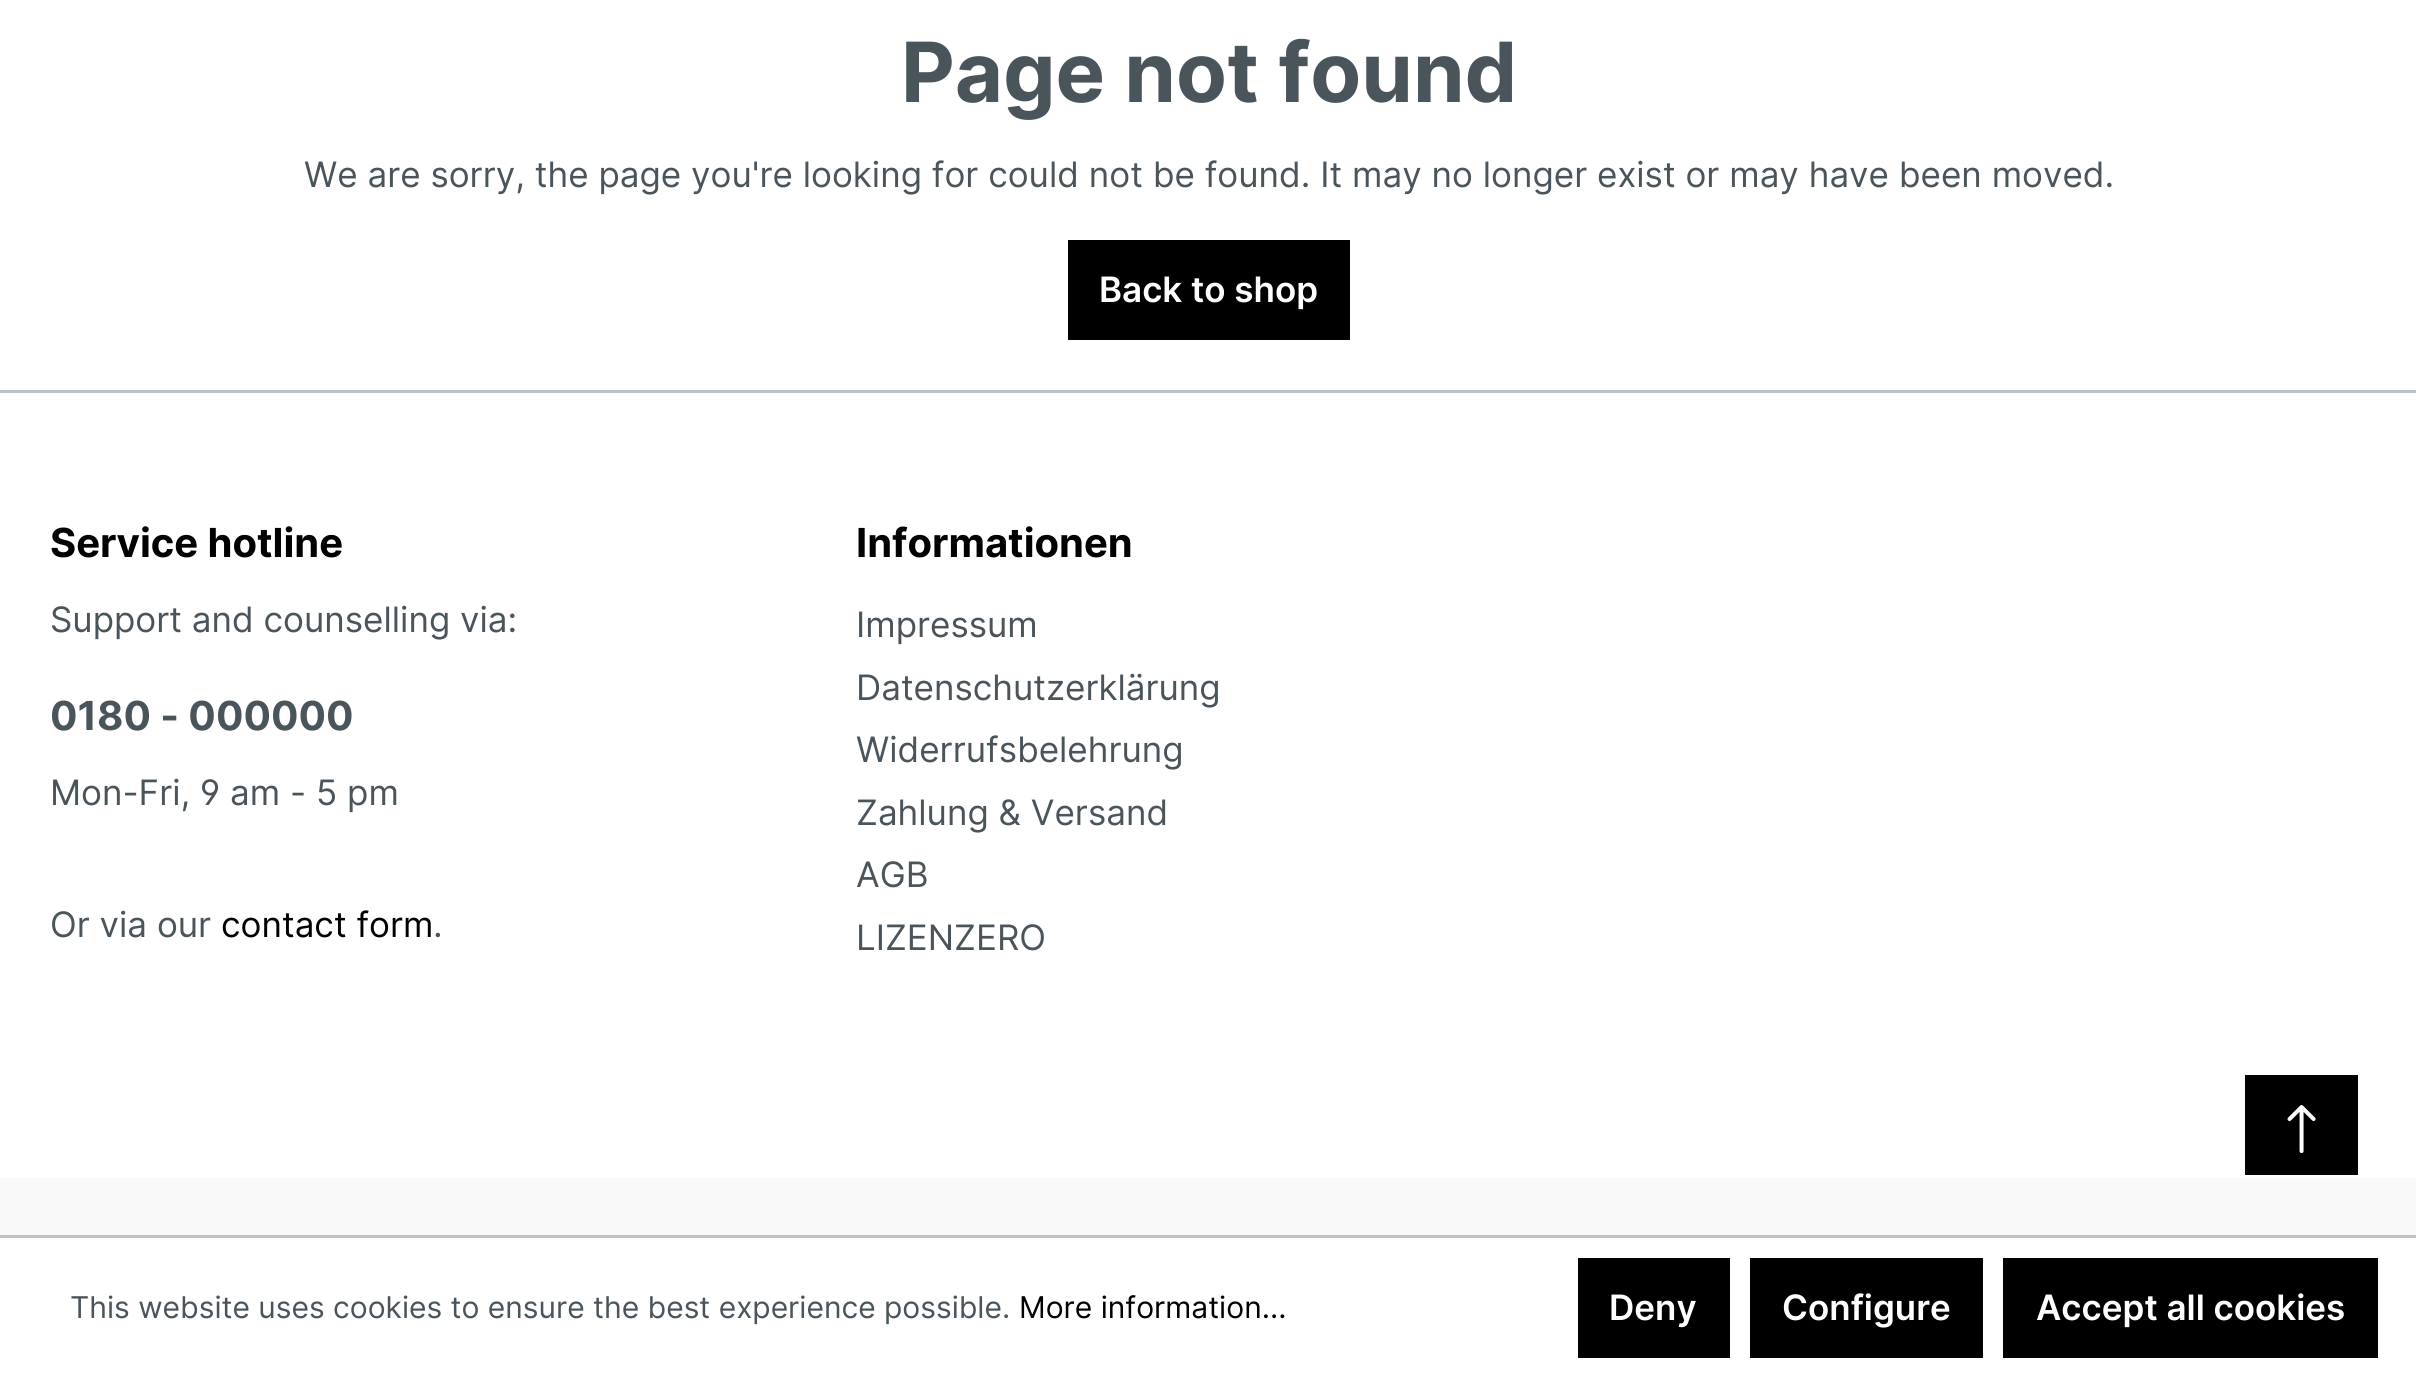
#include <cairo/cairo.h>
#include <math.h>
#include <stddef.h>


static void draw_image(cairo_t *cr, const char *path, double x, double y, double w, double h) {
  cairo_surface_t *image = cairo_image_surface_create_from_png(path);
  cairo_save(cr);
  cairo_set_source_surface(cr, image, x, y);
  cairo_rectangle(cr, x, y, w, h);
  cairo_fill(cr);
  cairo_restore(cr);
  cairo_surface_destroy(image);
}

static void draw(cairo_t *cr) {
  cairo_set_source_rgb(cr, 1, 1, 1);
  cairo_paint(cr);
  cairo_set_source_rgb(cr, 0, 0, 0);
  cairo_rectangle(cr, 1068, 240, 282, 100);
  cairo_fill(cr);
  cairo_set_source_rgb(cr, 188 / 255.0, 193 / 255.0, 199 / 255.0);
  cairo_rectangle(cr, 0, 390, 2416, 3);
  cairo_fill(cr);
  cairo_set_source_rgb(cr, 249 / 255.0, 249 / 255.0, 249 / 255.0);
  cairo_rectangle(cr, 0, 1178, 2416, 57);
  cairo_fill(cr);
  cairo_set_source_rgb(cr, 0, 0, 0);
  cairo_rectangle(cr, 2245, 1075, 113, 100);
  cairo_fill(cr);
  draw_image(cr, "images/1.png", 2287, 1105, 29, 48);
  cairo_set_source_rgb(cr, 188 / 255.0, 193 / 255.0, 199 / 255.0);
  cairo_rectangle(cr, 0, 1235, 2416, 3);
  cairo_fill(cr);
  cairo_set_source_rgb(cr, 0, 0, 0);
  cairo_rectangle(cr, 1578, 1258, 152, 100);
  cairo_fill(cr);
  cairo_rectangle(cr, 1750, 1258, 233, 100);
  cairo_fill(cr);
  cairo_rectangle(cr, 2003, 1258, 375, 100);
  cairo_fill(cr);
  cairo_select_font_face(cr, "Inter", CAIRO_FONT_SLANT_NORMAL, CAIRO_FONT_WEIGHT_BOLD);
  cairo_set_font_size(cr, 83);
  cairo_set_source_rgb(cr, 74 / 255.0, 84 / 255.0, 91 / 255.0);
  cairo_move_to(cr, 901, 102);
  cairo_show_text(cr, "Page not found");
  cairo_select_font_face(cr, "Inter", CAIRO_FONT_SLANT_NORMAL, CAIRO_FONT_WEIGHT_NORMAL);
  cairo_set_font_size(cr, 35);
  cairo_move_to(cr, 304, 187);
  cairo_show_text(cr, "We are sorry, the page you're looking for could not be found. It may no longer exist or may have been moved.");
  cairo_select_font_face(cr, "Inter SemiBold", CAIRO_FONT_SLANT_NORMAL, CAIRO_FONT_WEIGHT_NORMAL);
  cairo_set_source_rgb(cr, 1, 1, 1);
  cairo_move_to(cr, 1099, 302);
  cairo_show_text(cr, "Back to shop");
  cairo_select_font_face(cr, "Inter", CAIRO_FONT_SLANT_NORMAL, CAIRO_FONT_WEIGHT_BOLD);
  cairo_set_font_size(cr, 40);
  cairo_set_source_rgb(cr, 0, 0, 0);
  cairo_move_to(cr, 50, 557);
  cairo_show_text(cr, "Service hotline");
  cairo_select_font_face(cr, "Inter", CAIRO_FONT_SLANT_NORMAL, CAIRO_FONT_WEIGHT_NORMAL);
  cairo_set_font_size(cr, 35);
  cairo_set_source_rgb(cr, 74 / 255.0, 84 / 255.0, 91 / 255.0);
  cairo_move_to(cr, 50, 632);
  cairo_show_text(cr, "Support and counselling via:");
  cairo_select_font_face(cr, "Inter", CAIRO_FONT_SLANT_NORMAL, CAIRO_FONT_WEIGHT_BOLD);
  cairo_set_font_size(cr, 40);
  cairo_move_to(cr, 50, 730);
  cairo_show_text(cr, "0180 - 000000");
  cairo_select_font_face(cr, "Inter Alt", CAIRO_FONT_SLANT_NORMAL, CAIRO_FONT_WEIGHT_NORMAL);
  cairo_set_font_size(cr, 35);
  cairo_move_to(cr, 50, 805);
  cairo_show_text(cr, "Mon-Fri, 9 am - 5 pm");
  cairo_select_font_face(cr, "Inter", CAIRO_FONT_SLANT_NORMAL, CAIRO_FONT_WEIGHT_NORMAL);
  cairo_move_to(cr, 50, 937);
  cairo_show_text(cr, "Or via our");
  cairo_set_source_rgb(cr, 0, 0, 0);
  cairo_move_to(cr, 221, 937);
  cairo_show_text(cr, "contact form");
  cairo_set_source_rgb(cr, 74 / 255.0, 84 / 255.0, 91 / 255.0);
  cairo_move_to(cr, 433, 937);
  cairo_show_text(cr, ".");
  cairo_select_font_face(cr, "Inter", CAIRO_FONT_SLANT_NORMAL, CAIRO_FONT_WEIGHT_BOLD);
  cairo_set_font_size(cr, 40);
  cairo_set_source_rgb(cr, 0, 0, 0);
  cairo_move_to(cr, 856, 557);
  cairo_show_text(cr, "Informationen");
  cairo_select_font_face(cr, "Inter", CAIRO_FONT_SLANT_NORMAL, CAIRO_FONT_WEIGHT_NORMAL);
  cairo_set_font_size(cr, 35);
  cairo_set_source_rgb(cr, 74 / 255.0, 84 / 255.0, 91 / 255.0);
  cairo_move_to(cr, 856, 637);
  cairo_show_text(cr, "Impressum");
  cairo_move_to(cr, 856, 700);
  cairo_show_text(cr, "Datenschutzerklärung");
  cairo_move_to(cr, 856, 762);
  cairo_show_text(cr, "Widerrufsbelehrung");
  cairo_move_to(cr, 856, 825);
  cairo_show_text(cr, "Zahlung & Versand");
  cairo_move_to(cr, 856, 887);
  cairo_show_text(cr, "AGB");
  cairo_move_to(cr, 856, 950);
  cairo_show_text(cr, "LIZENZERO");
  cairo_set_font_size(cr, 30);
  cairo_move_to(cr, 70, 1318);
  cairo_show_text(cr, "This website uses cookies to ensure the best experience possible.");
  cairo_set_source_rgb(cr, 0, 0, 0);
  cairo_move_to(cr, 1019, 1318);
  cairo_show_text(cr, "More information...");
  cairo_select_font_face(cr, "Inter SemiBold", CAIRO_FONT_SLANT_NORMAL, CAIRO_FONT_WEIGHT_NORMAL);
  cairo_set_font_size(cr, 35);
  cairo_set_source_rgb(cr, 1, 1, 1);
  cairo_move_to(cr, 1609, 1320);
  cairo_show_text(cr, "Deny");
  cairo_move_to(cr, 1782, 1320);
  cairo_show_text(cr, "Configure");
  cairo_move_to(cr, 2036, 1320);
  cairo_show_text(cr, "Accept all cookies");
}

int main(void) {
  cairo_surface_t *surface = cairo_image_surface_create(CAIRO_FORMAT_RGB24, 2416, 1377);
  cairo_t *cr = cairo_create(surface);
  cairo_font_options_t *options = cairo_font_options_create();
  cairo_font_options_set_hint_metrics(options, CAIRO_HINT_METRICS_OFF);
  cairo_font_options_set_hint_style(options, CAIRO_HINT_STYLE_NONE);
  cairo_set_font_options(cr, options);
  cairo_set_miter_limit(cr, 4);
  draw(cr);
  cairo_surface_write_to_png(surface, "out.png");
  cairo_font_options_destroy(options);
  cairo_destroy(cr);
  cairo_surface_destroy(surface);
  return 0;
}
